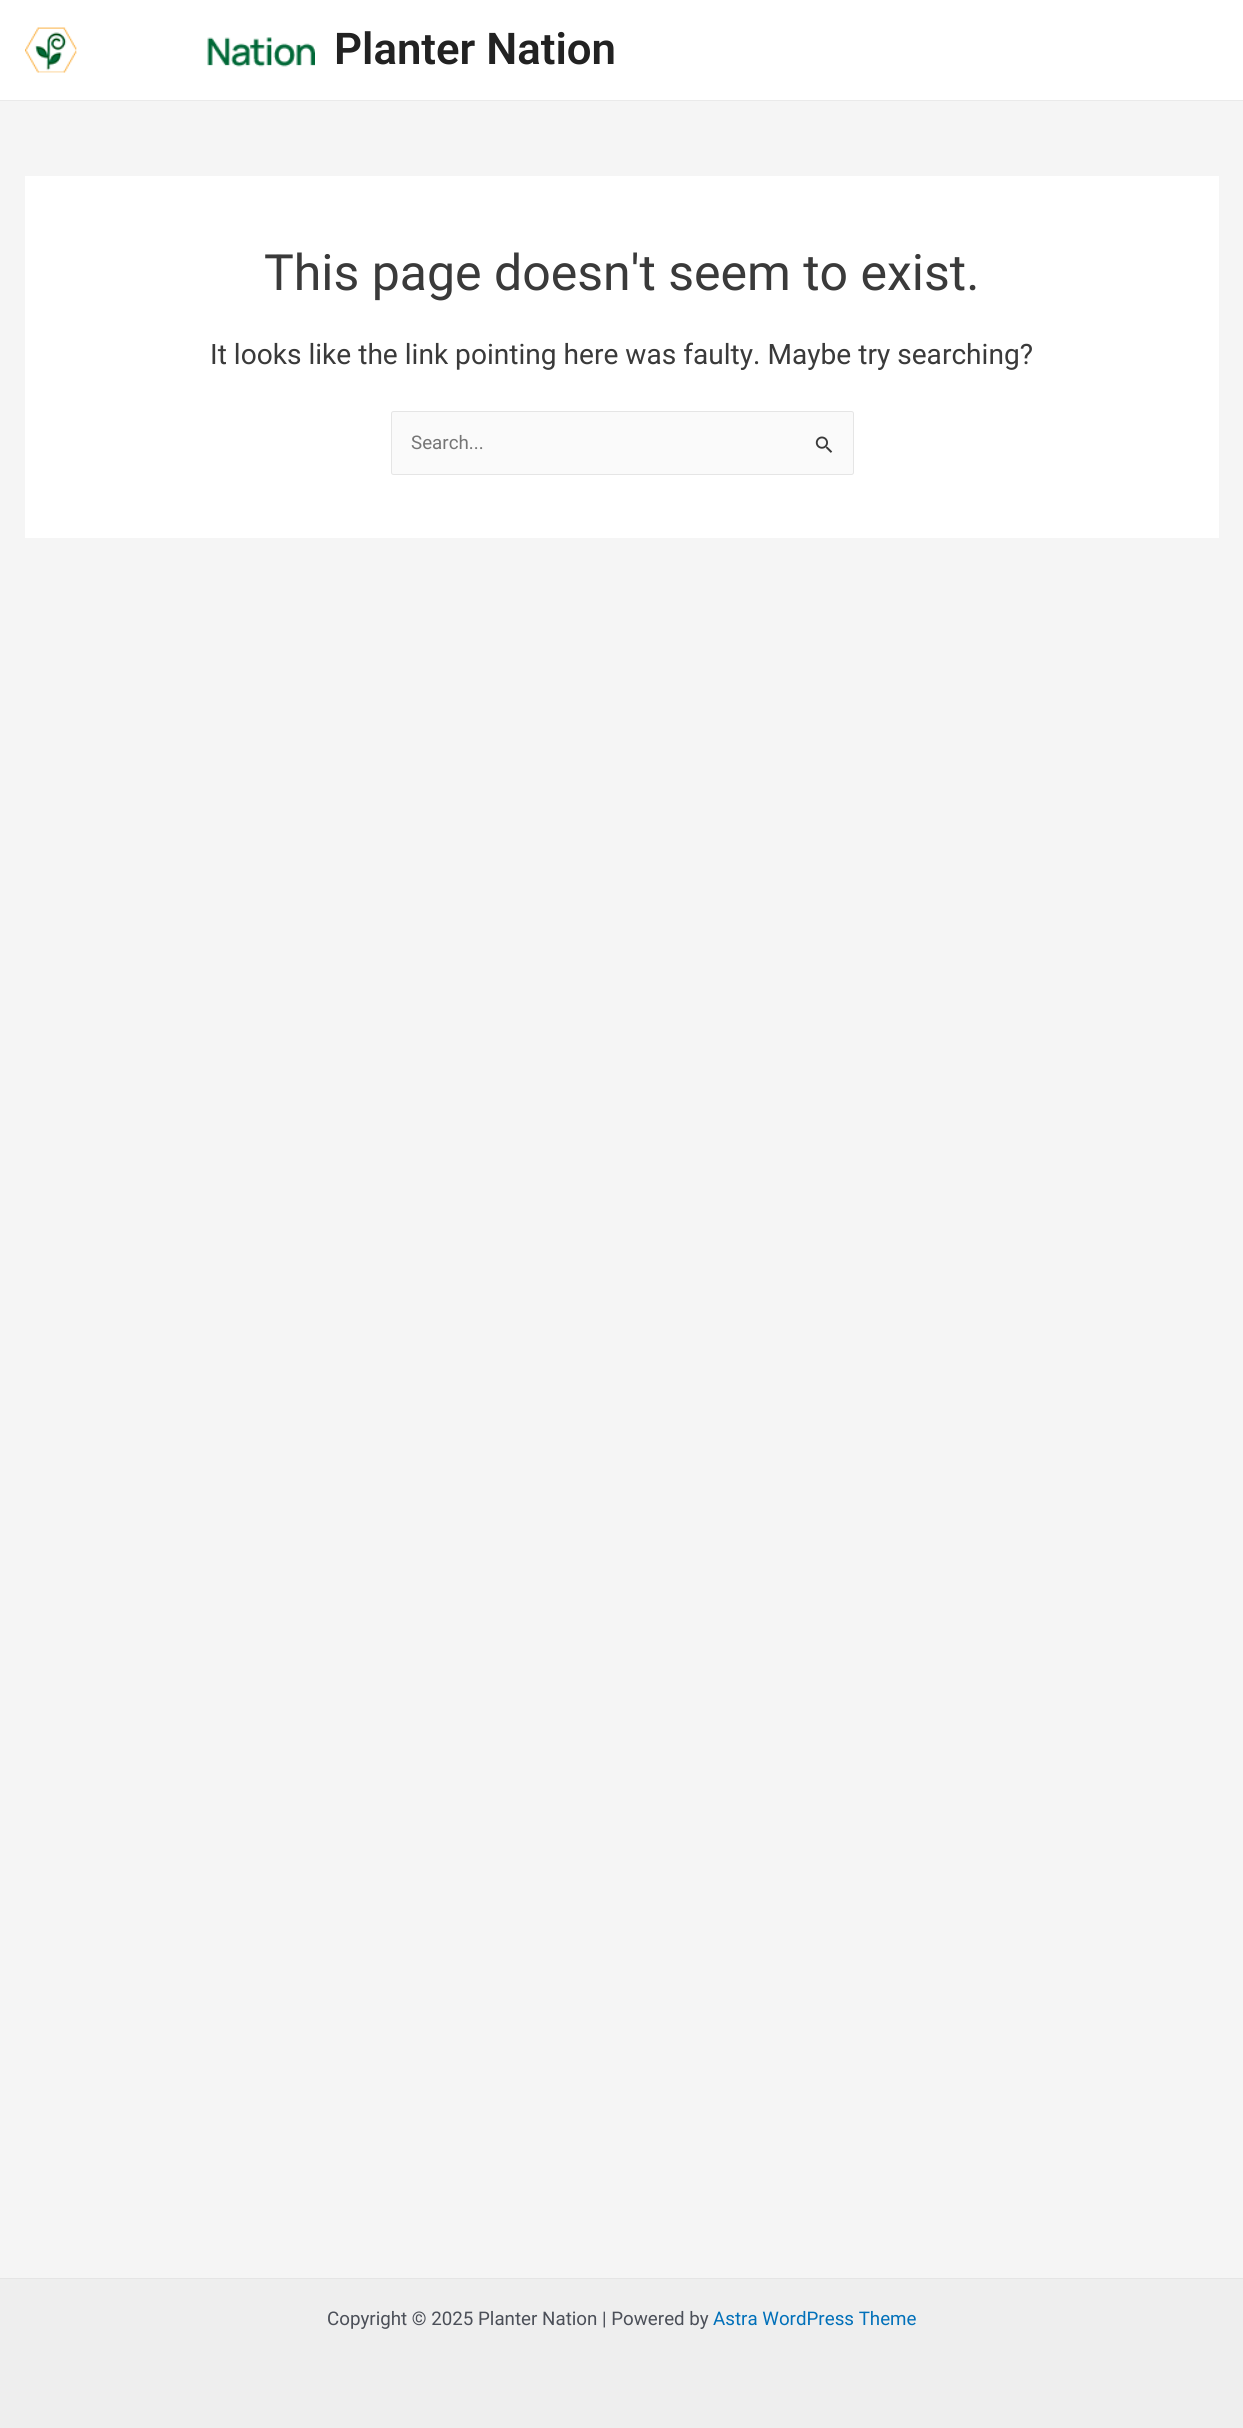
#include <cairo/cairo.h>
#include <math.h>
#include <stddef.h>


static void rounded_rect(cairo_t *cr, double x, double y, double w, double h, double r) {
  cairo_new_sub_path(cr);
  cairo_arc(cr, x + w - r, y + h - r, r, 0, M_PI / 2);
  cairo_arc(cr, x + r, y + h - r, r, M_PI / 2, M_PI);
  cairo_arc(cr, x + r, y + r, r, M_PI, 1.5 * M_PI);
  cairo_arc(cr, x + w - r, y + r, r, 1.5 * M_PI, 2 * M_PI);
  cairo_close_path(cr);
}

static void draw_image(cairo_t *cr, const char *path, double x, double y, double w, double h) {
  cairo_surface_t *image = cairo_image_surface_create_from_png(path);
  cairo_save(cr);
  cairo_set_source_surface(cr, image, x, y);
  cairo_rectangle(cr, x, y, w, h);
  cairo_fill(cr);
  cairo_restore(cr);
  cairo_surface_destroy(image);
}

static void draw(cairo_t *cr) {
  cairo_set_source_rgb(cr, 245 / 255.0, 245 / 255.0, 245 / 255.0);
  cairo_paint(cr);
  cairo_set_source_rgb(cr, 1, 1, 1);
  cairo_rectangle(cr, 0, 0, 1243, 100);
  cairo_fill(cr);
  cairo_set_source_rgb(cr, 234 / 255.0, 234 / 255.0, 234 / 255.0);
  cairo_rectangle(cr, 0, 100, 1243, 1);
  cairo_fill(cr);
  draw_image(cr, "images/1.png", 25, 27, 290, 46);
  cairo_set_source_rgb(cr, 1, 1, 1);
  cairo_rectangle(cr, 25, 176, 1194, 362);
  cairo_fill(cr);
  cairo_set_source_rgb(cr, 250 / 255.0, 250 / 255.0, 250 / 255.0);
  rounded_rect(cr, 391.5, 411.5, 462, 63, 2);
  cairo_fill_preserve(cr);
  cairo_set_source_rgb(cr, 229 / 255.0, 229 / 255.0, 229 / 255.0);
  cairo_set_line_width(cr, 1);
  cairo_stroke(cr);
  draw_image(cr, "images/2.png", 815, 436, 18, 17);
  cairo_set_source_rgb(cr, 238 / 255.0, 238 / 255.0, 238 / 255.0);
  cairo_rectangle(cr, 0, 2279, 1243, 149);
  cairo_fill(cr);
  cairo_set_source_rgb(cr, 229 / 255.0, 229 / 255.0, 229 / 255.0);
  cairo_rectangle(cr, 0, 2278, 1243, 1);
  cairo_fill(cr);
  cairo_select_font_face(cr, "Roboto SemiBold", CAIRO_FONT_SLANT_NORMAL, CAIRO_FONT_WEIGHT_NORMAL);
  cairo_set_font_size(cr, 43.75);
  cairo_set_source_rgb(cr, 34 / 255.0, 34 / 255.0, 34 / 255.0);
  cairo_move_to(cr, 334, 64);
  cairo_show_text(cr, "Planter Nation");
  cairo_select_font_face(cr, "Roboto", CAIRO_FONT_SLANT_NORMAL, CAIRO_FONT_WEIGHT_NORMAL);
  cairo_set_font_size(cr, 50);
  cairo_set_source_rgb(cr, 58 / 255.0, 58 / 255.0, 58 / 255.0);
  cairo_move_to(cr, 264, 290);
  cairo_show_text(cr, "This page doesn't seem to exist.");
  cairo_set_font_size(cr, 28.1);
  cairo_move_to(cr, 210, 364);
  cairo_show_text(cr, "It looks like the link pointing here was faulty. Maybe try searching?");
  cairo_set_font_size(cr, 18.75);
  cairo_set_source_rgb(cr, 117 / 255.0, 117 / 255.0, 117 / 255.0);
  cairo_move_to(cr, 411, 449);
  cairo_show_text(cr, "Search...");
  cairo_set_source_rgb(cr, 75 / 255.0, 79 / 255.0, 88 / 255.0);
  cairo_move_to(cr, 327, 2325);
  cairo_show_text(cr, "Copyright © 2025 Planter Nation | Powered by");
  cairo_set_source_rgb(cr, 1 / 255.0, 112 / 255.0, 185 / 255.0);
  cairo_move_to(cr, 713, 2325);
  cairo_show_text(cr, "Astra WordPress Theme");
}

int main(void) {
  cairo_surface_t *surface = cairo_image_surface_create(CAIRO_FORMAT_RGB24, 1243, 2428);
  cairo_t *cr = cairo_create(surface);
  cairo_font_options_t *options = cairo_font_options_create();
  cairo_font_options_set_hint_metrics(options, CAIRO_HINT_METRICS_OFF);
  cairo_font_options_set_hint_style(options, CAIRO_HINT_STYLE_NONE);
  cairo_set_font_options(cr, options);
  cairo_set_miter_limit(cr, 4);
  draw(cr);
  cairo_surface_write_to_png(surface, "out.png");
  cairo_font_options_destroy(options);
  cairo_destroy(cr);
  cairo_surface_destroy(surface);
  return 0;
}
